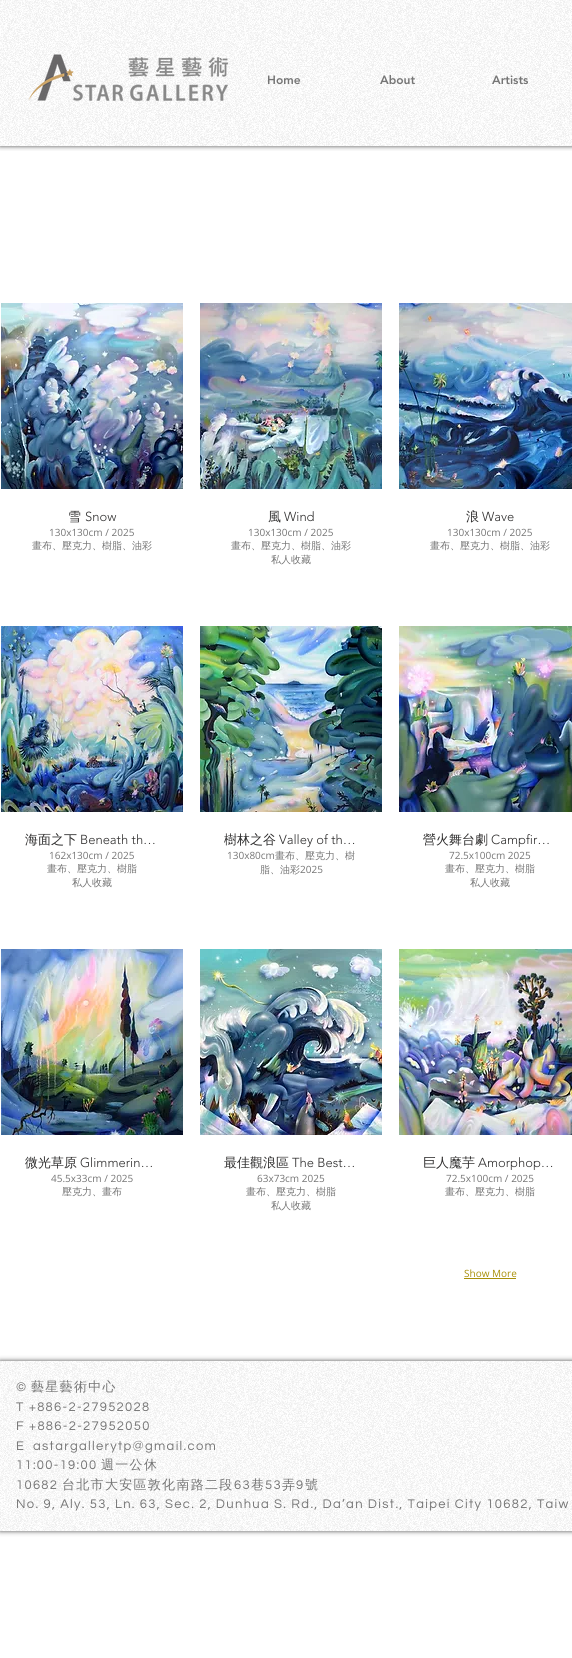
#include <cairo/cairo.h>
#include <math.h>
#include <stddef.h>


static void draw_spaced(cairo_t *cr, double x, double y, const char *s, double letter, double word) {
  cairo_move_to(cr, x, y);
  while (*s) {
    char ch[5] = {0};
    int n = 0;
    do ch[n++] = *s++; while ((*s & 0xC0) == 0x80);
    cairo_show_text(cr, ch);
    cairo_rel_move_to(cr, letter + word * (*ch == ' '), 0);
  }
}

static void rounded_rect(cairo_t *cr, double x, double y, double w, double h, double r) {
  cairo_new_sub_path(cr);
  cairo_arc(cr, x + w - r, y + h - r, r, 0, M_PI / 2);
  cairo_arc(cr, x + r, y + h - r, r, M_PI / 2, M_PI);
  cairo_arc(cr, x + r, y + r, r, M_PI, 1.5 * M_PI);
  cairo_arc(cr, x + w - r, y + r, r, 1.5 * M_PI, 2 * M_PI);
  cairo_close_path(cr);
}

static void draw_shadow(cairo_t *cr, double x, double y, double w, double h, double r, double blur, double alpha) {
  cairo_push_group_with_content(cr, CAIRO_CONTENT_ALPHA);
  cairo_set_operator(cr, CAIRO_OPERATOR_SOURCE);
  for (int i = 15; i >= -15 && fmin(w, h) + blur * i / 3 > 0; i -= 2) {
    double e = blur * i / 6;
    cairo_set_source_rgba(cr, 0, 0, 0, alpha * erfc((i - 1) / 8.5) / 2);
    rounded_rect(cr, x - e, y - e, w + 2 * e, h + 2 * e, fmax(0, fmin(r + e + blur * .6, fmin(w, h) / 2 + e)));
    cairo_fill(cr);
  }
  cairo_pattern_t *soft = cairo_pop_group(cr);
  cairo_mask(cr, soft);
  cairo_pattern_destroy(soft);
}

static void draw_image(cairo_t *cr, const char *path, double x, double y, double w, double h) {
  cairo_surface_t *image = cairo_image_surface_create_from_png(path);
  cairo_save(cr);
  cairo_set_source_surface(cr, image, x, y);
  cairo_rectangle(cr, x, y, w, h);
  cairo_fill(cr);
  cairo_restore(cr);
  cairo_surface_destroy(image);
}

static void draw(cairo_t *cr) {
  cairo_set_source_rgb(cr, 1, 1, 1);
  cairo_paint(cr);
  cairo_save(cr);
  cairo_rectangle(cr, 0, 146, 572, 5);
  cairo_clip(cr);
  cairo_set_source_rgb(cr, 0, 0, 0);
  draw_shadow(cr, 0, 0, 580, 146, 0, 2.5, 0.7);
  cairo_restore(cr);
  draw_image(cr, "images/1.png", 0, 0, 572, 146);
  draw_image(cr, "images/2.png", 28, 54, 201, 48);
  draw_image(cr, "images/3.png", 1, 303, 182, 186);
  draw_image(cr, "images/4.png", 200, 303, 182, 186);
  draw_image(cr, "images/5.png", 399, 303, 173, 186);
  draw_image(cr, "images/6.png", 1, 626, 182, 186);
  draw_image(cr, "images/7.png", 200, 626, 182, 186);
  draw_image(cr, "images/8.png", 399, 626, 173, 186);
  draw_image(cr, "images/9.png", 1, 949, 182, 186);
  draw_image(cr, "images/10.png", 200, 949, 182, 186);
  draw_image(cr, "images/11.png", 399, 949, 173, 186);
  cairo_set_source_rgb(cr, 169 / 255.0, 144 / 255.0, 9 / 255.0);
  cairo_rectangle(cr, 464, 1278, 52, 1);
  cairo_fill(cr);
  cairo_save(cr);
  cairo_set_fill_rule(cr, CAIRO_FILL_RULE_EVEN_ODD);
  cairo_new_path(cr);
  cairo_move_to(cr, 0, 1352);
  cairo_line_to(cr, 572, 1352);
  cairo_line_to(cr, 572, 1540);
  cairo_line_to(cr, 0, 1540);
  cairo_close_path(cr);
  cairo_move_to(cr, 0, 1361);
  cairo_line_to(cr, 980, 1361);
  cairo_line_to(cr, 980, 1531);
  cairo_line_to(cr, 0, 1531);
  cairo_close_path(cr);
  cairo_clip(cr);
  cairo_set_source_rgb(cr, 0, 0, 0);
  draw_shadow(cr, 0, 1361, 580, 170, 0, 2.5, 0.7);
  cairo_restore(cr);
  draw_image(cr, "images/12.png", 0, 1361, 572, 170);
  cairo_select_font_face(cr, "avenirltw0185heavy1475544 Black", CAIRO_FONT_SLANT_NORMAL, CAIRO_FONT_WEIGHT_NORMAL);
  cairo_set_font_size(cr, 12);
  cairo_set_source_rgb(cr, 117 / 255.0, 117 / 255.0, 117 / 255.0);
  cairo_move_to(cr, 267, 84);
  cairo_show_text(cr, "Home");
  cairo_move_to(cr, 380, 84);
  cairo_show_text(cr, "About");
  cairo_move_to(cr, 492, 84);
  cairo_show_text(cr, "Artists");
  cairo_select_font_face(cr, "WenQuanYi Zen Hei Medium", CAIRO_FONT_SLANT_NORMAL, CAIRO_FONT_WEIGHT_NORMAL);
  cairo_set_font_size(cr, 13);
  cairo_set_source_rgb(cr, 47 / 255.0, 46 / 255.0, 46 / 255.0);
  cairo_move_to(cr, 68, 521);
  cairo_show_text(cr, "雪");
  cairo_select_font_face(cr, "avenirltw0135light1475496 Light", CAIRO_FONT_SLANT_NORMAL, CAIRO_FONT_WEIGHT_NORMAL);
  cairo_move_to(cr, 85, 521);
  cairo_show_text(cr, "Snow");
  cairo_select_font_face(cr, "Open Sans", CAIRO_FONT_SLANT_NORMAL, CAIRO_FONT_WEIGHT_NORMAL);
  cairo_set_font_size(cr, 10);
  cairo_set_source_rgb(cr, 117 / 255.0, 117 / 255.0, 117 / 255.0);
  cairo_move_to(cr, 49, 536);
  cairo_show_text(cr, "130x130cm / 2025");
  cairo_select_font_face(cr, "WenQuanYi Zen Hei Medium", CAIRO_FONT_SLANT_NORMAL, CAIRO_FONT_WEIGHT_NORMAL);
  cairo_move_to(cr, 32, 549);
  cairo_show_text(cr, "畫布、壓克力、樹脂、油彩");
  cairo_set_font_size(cr, 13);
  cairo_set_source_rgb(cr, 47 / 255.0, 46 / 255.0, 46 / 255.0);
  cairo_move_to(cr, 268, 521);
  cairo_show_text(cr, "風");
  cairo_select_font_face(cr, "avenirltw0135light1475496 Light", CAIRO_FONT_SLANT_NORMAL, CAIRO_FONT_WEIGHT_NORMAL);
  cairo_move_to(cr, 284, 521);
  cairo_show_text(cr, "Wind");
  cairo_select_font_face(cr, "Open Sans", CAIRO_FONT_SLANT_NORMAL, CAIRO_FONT_WEIGHT_NORMAL);
  cairo_set_font_size(cr, 10);
  cairo_set_source_rgb(cr, 117 / 255.0, 117 / 255.0, 117 / 255.0);
  cairo_move_to(cr, 248, 536);
  cairo_show_text(cr, "130x130cm / 2025");
  cairo_select_font_face(cr, "WenQuanYi Zen Hei Medium", CAIRO_FONT_SLANT_NORMAL, CAIRO_FONT_WEIGHT_NORMAL);
  cairo_move_to(cr, 231, 549);
  cairo_show_text(cr, "畫布、壓克力、樹脂、油彩");
  cairo_move_to(cr, 271, 563);
  cairo_show_text(cr, "私人收藏");
  cairo_set_font_size(cr, 13);
  cairo_set_source_rgb(cr, 47 / 255.0, 46 / 255.0, 46 / 255.0);
  cairo_move_to(cr, 466, 521);
  cairo_show_text(cr, "浪");
  cairo_select_font_face(cr, "avenirltw0135light1475496 Light", CAIRO_FONT_SLANT_NORMAL, CAIRO_FONT_WEIGHT_NORMAL);
  cairo_move_to(cr, 482, 521);
  cairo_show_text(cr, "Wave");
  cairo_select_font_face(cr, "Open Sans", CAIRO_FONT_SLANT_NORMAL, CAIRO_FONT_WEIGHT_NORMAL);
  cairo_set_font_size(cr, 10);
  cairo_set_source_rgb(cr, 117 / 255.0, 117 / 255.0, 117 / 255.0);
  cairo_move_to(cr, 447, 536);
  cairo_show_text(cr, "130x130cm / 2025");
  cairo_select_font_face(cr, "WenQuanYi Zen Hei Medium", CAIRO_FONT_SLANT_NORMAL, CAIRO_FONT_WEIGHT_NORMAL);
  cairo_move_to(cr, 430, 549);
  cairo_show_text(cr, "畫布、壓克力、樹脂、油彩");
  cairo_set_font_size(cr, 13);
  cairo_set_source_rgb(cr, 47 / 255.0, 46 / 255.0, 46 / 255.0);
  cairo_move_to(cr, 25, 844);
  cairo_show_text(cr, "海面之下");
  cairo_select_font_face(cr, "avenirltw0135light1475496 Light", CAIRO_FONT_SLANT_NORMAL, CAIRO_FONT_WEIGHT_NORMAL);
  cairo_move_to(cr, 80, 844);
  cairo_show_text(cr, "Beneath th…");
  cairo_select_font_face(cr, "Open Sans", CAIRO_FONT_SLANT_NORMAL, CAIRO_FONT_WEIGHT_NORMAL);
  cairo_set_font_size(cr, 10);
  cairo_set_source_rgb(cr, 117 / 255.0, 117 / 255.0, 117 / 255.0);
  cairo_move_to(cr, 49, 859);
  cairo_show_text(cr, "162x130cm / 2025");
  cairo_select_font_face(cr, "WenQuanYi Zen Hei Medium", CAIRO_FONT_SLANT_NORMAL, CAIRO_FONT_WEIGHT_NORMAL);
  cairo_move_to(cr, 47, 872);
  cairo_show_text(cr, "畫布、壓克力、樹脂");
  cairo_move_to(cr, 72, 886);
  cairo_show_text(cr, "私人收藏");
  cairo_set_font_size(cr, 13);
  cairo_set_source_rgb(cr, 47 / 255.0, 46 / 255.0, 46 / 255.0);
  cairo_move_to(cr, 224, 844);
  cairo_show_text(cr, "樹林之谷");
  cairo_select_font_face(cr, "avenirltw0135light1475496 Light", CAIRO_FONT_SLANT_NORMAL, CAIRO_FONT_WEIGHT_NORMAL);
  cairo_move_to(cr, 279, 844);
  cairo_show_text(cr, "Valley of th…");
  cairo_select_font_face(cr, "Open Sans", CAIRO_FONT_SLANT_NORMAL, CAIRO_FONT_WEIGHT_NORMAL);
  cairo_set_font_size(cr, 10);
  cairo_set_source_rgb(cr, 117 / 255.0, 117 / 255.0, 117 / 255.0);
  cairo_move_to(cr, 227, 859);
  cairo_show_text(cr, "130x80cm");
  cairo_select_font_face(cr, "WenQuanYi Zen Hei Medium", CAIRO_FONT_SLANT_NORMAL, CAIRO_FONT_WEIGHT_NORMAL);
  cairo_move_to(cr, 275, 859);
  cairo_show_text(cr, "畫布、壓克力、樹");
  cairo_move_to(cr, 260, 873);
  cairo_show_text(cr, "脂、油彩");
  cairo_select_font_face(cr, "Open Sans", CAIRO_FONT_SLANT_NORMAL, CAIRO_FONT_WEIGHT_NORMAL);
  cairo_move_to(cr, 300, 873);
  cairo_show_text(cr, "2025");
  cairo_select_font_face(cr, "WenQuanYi Zen Hei Medium", CAIRO_FONT_SLANT_NORMAL, CAIRO_FONT_WEIGHT_NORMAL);
  cairo_set_font_size(cr, 13);
  cairo_set_source_rgb(cr, 47 / 255.0, 46 / 255.0, 46 / 255.0);
  cairo_move_to(cr, 423, 844);
  cairo_show_text(cr, "營火舞台劇");
  cairo_select_font_face(cr, "avenirltw0135light1475496 Light", CAIRO_FONT_SLANT_NORMAL, CAIRO_FONT_WEIGHT_NORMAL);
  cairo_move_to(cr, 491, 844);
  cairo_show_text(cr, "Campfir…");
  cairo_select_font_face(cr, "Open Sans", CAIRO_FONT_SLANT_NORMAL, CAIRO_FONT_WEIGHT_NORMAL);
  cairo_set_font_size(cr, 10);
  cairo_set_source_rgb(cr, 117 / 255.0, 117 / 255.0, 117 / 255.0);
  cairo_move_to(cr, 449, 859);
  cairo_show_text(cr, "72.5x100cm 2025");
  cairo_select_font_face(cr, "WenQuanYi Zen Hei Medium", CAIRO_FONT_SLANT_NORMAL, CAIRO_FONT_WEIGHT_NORMAL);
  cairo_move_to(cr, 445, 872);
  cairo_show_text(cr, "畫布、壓克力、樹脂");
  cairo_move_to(cr, 470, 886);
  cairo_show_text(cr, "私人收藏");
  cairo_set_font_size(cr, 13);
  cairo_set_source_rgb(cr, 47 / 255.0, 46 / 255.0, 46 / 255.0);
  cairo_move_to(cr, 25, 1167);
  cairo_show_text(cr, "微光草原");
  cairo_select_font_face(cr, "avenirltw0135light1475496 Light", CAIRO_FONT_SLANT_NORMAL, CAIRO_FONT_WEIGHT_NORMAL);
  cairo_move_to(cr, 80, 1167);
  cairo_show_text(cr, "Glimmerin…");
  cairo_select_font_face(cr, "Open Sans", CAIRO_FONT_SLANT_NORMAL, CAIRO_FONT_WEIGHT_NORMAL);
  cairo_set_font_size(cr, 10);
  cairo_set_source_rgb(cr, 117 / 255.0, 117 / 255.0, 117 / 255.0);
  cairo_move_to(cr, 51, 1182);
  cairo_show_text(cr, "45.5x33cm / 2025");
  cairo_select_font_face(cr, "WenQuanYi Zen Hei Medium", CAIRO_FONT_SLANT_NORMAL, CAIRO_FONT_WEIGHT_NORMAL);
  cairo_move_to(cr, 62, 1195);
  cairo_show_text(cr, "壓克力、畫布");
  cairo_set_font_size(cr, 13);
  cairo_set_source_rgb(cr, 47 / 255.0, 46 / 255.0, 46 / 255.0);
  cairo_move_to(cr, 224, 1167);
  cairo_show_text(cr, "最佳觀浪區");
  cairo_select_font_face(cr, "avenirltw0135light1475496 Light", CAIRO_FONT_SLANT_NORMAL, CAIRO_FONT_WEIGHT_NORMAL);
  cairo_move_to(cr, 292, 1167);
  cairo_show_text(cr, "The Best…");
  cairo_select_font_face(cr, "Open Sans", CAIRO_FONT_SLANT_NORMAL, CAIRO_FONT_WEIGHT_NORMAL);
  cairo_set_font_size(cr, 10);
  cairo_set_source_rgb(cr, 117 / 255.0, 117 / 255.0, 117 / 255.0);
  cairo_move_to(cr, 257, 1182);
  cairo_show_text(cr, "63x73cm 2025");
  cairo_select_font_face(cr, "WenQuanYi Zen Hei Medium", CAIRO_FONT_SLANT_NORMAL, CAIRO_FONT_WEIGHT_NORMAL);
  cairo_move_to(cr, 246, 1195);
  cairo_show_text(cr, "畫布、壓克力、樹脂");
  cairo_move_to(cr, 271, 1209);
  cairo_show_text(cr, "私人收藏");
  cairo_set_font_size(cr, 13);
  cairo_set_source_rgb(cr, 47 / 255.0, 46 / 255.0, 46 / 255.0);
  cairo_move_to(cr, 423, 1167);
  cairo_show_text(cr, "巨人魔芋");
  cairo_select_font_face(cr, "avenirltw0135light1475496 Light", CAIRO_FONT_SLANT_NORMAL, CAIRO_FONT_WEIGHT_NORMAL);
  cairo_move_to(cr, 478, 1167);
  cairo_show_text(cr, "Amorphop…");
  cairo_select_font_face(cr, "Open Sans", CAIRO_FONT_SLANT_NORMAL, CAIRO_FONT_WEIGHT_NORMAL);
  cairo_set_font_size(cr, 10);
  cairo_set_source_rgb(cr, 117 / 255.0, 117 / 255.0, 117 / 255.0);
  cairo_move_to(cr, 446, 1182);
  cairo_show_text(cr, "72.5x100cm / 2025");
  cairo_select_font_face(cr, "WenQuanYi Zen Hei Medium", CAIRO_FONT_SLANT_NORMAL, CAIRO_FONT_WEIGHT_NORMAL);
  cairo_move_to(cr, 445, 1195);
  cairo_show_text(cr, "畫布、壓克力、樹脂");
  cairo_select_font_face(cr, "Open Sans", CAIRO_FONT_SLANT_NORMAL, CAIRO_FONT_WEIGHT_NORMAL);
  cairo_set_source_rgb(cr, 169 / 255.0, 144 / 255.0, 9 / 255.0);
  cairo_move_to(cr, 464, 1277);
  cairo_show_text(cr, "Show More");
  cairo_select_font_face(cr, "Questrial", CAIRO_FONT_SLANT_NORMAL, CAIRO_FONT_WEIGHT_NORMAL);
  cairo_set_font_size(cr, 13);
  cairo_set_source_rgb(cr, 117 / 255.0, 117 / 255.0, 117 / 255.0);
  draw_spaced(cr, 16, 1391, "©", 1.3, 0);
  cairo_select_font_face(cr, "WenQuanYi Zen Hei Medium", CAIRO_FONT_SLANT_NORMAL, CAIRO_FONT_WEIGHT_NORMAL);
  draw_spaced(cr, 31, 1391, "藝星藝術中心", 1.3, 0);
  cairo_select_font_face(cr, "Questrial", CAIRO_FONT_SLANT_NORMAL, CAIRO_FONT_WEIGHT_NORMAL);
  draw_spaced(cr, 16, 1411, "T +886-2-27952028", 1.3, 0);
  draw_spaced(cr, 16, 1430, "F +886-2-27952050", 1.3, 0);
  draw_spaced(cr, 16, 1450, "E", 1.3, 0);
  draw_spaced(cr, 33, 1450, "astargallerytp@gmail.com", 1.3, 0);
  draw_spaced(cr, 16, 1469, "11:00-19:00", 1.3, 0);
  cairo_select_font_face(cr, "WenQuanYi Zen Hei Medium", CAIRO_FONT_SLANT_NORMAL, CAIRO_FONT_WEIGHT_NORMAL);
  draw_spaced(cr, 101, 1469, "週一公休", 1.3, 0);
  cairo_select_font_face(cr, "Questrial", CAIRO_FONT_SLANT_NORMAL, CAIRO_FONT_WEIGHT_NORMAL);
  draw_spaced(cr, 16, 1489, "10682", 1.3, 0);
  cairo_select_font_face(cr, "WenQuanYi Zen Hei Medium", CAIRO_FONT_SLANT_NORMAL, CAIRO_FONT_WEIGHT_NORMAL);
  draw_spaced(cr, 62, 1489, "台北市大安區敦化南路二段", 1.3, 0);
  cairo_select_font_face(cr, "Questrial", CAIRO_FONT_SLANT_NORMAL, CAIRO_FONT_WEIGHT_NORMAL);
  draw_spaced(cr, 234, 1489, "63", 1.3, 0);
  cairo_select_font_face(cr, "WenQuanYi Zen Hei Medium", CAIRO_FONT_SLANT_NORMAL, CAIRO_FONT_WEIGHT_NORMAL);
  draw_spaced(cr, 251, 1489, "巷", 1.3, 0);
  cairo_select_font_face(cr, "Questrial", CAIRO_FONT_SLANT_NORMAL, CAIRO_FONT_WEIGHT_NORMAL);
  draw_spaced(cr, 265, 1489, "53", 1.3, 0);
  cairo_select_font_face(cr, "WenQuanYi Zen Hei Medium", CAIRO_FONT_SLANT_NORMAL, CAIRO_FONT_WEIGHT_NORMAL);
  draw_spaced(cr, 282, 1489, "弄", 1.3, 0);
  cairo_select_font_face(cr, "Questrial", CAIRO_FONT_SLANT_NORMAL, CAIRO_FONT_WEIGHT_NORMAL);
  draw_spaced(cr, 296, 1489, "9", 1.3, 0);
  cairo_select_font_face(cr, "WenQuanYi Zen Hei Medium", CAIRO_FONT_SLANT_NORMAL, CAIRO_FONT_WEIGHT_NORMAL);
  draw_spaced(cr, 305, 1489, "號", 1.3, 0);
  cairo_select_font_face(cr, "Questrial", CAIRO_FONT_SLANT_NORMAL, CAIRO_FONT_WEIGHT_NORMAL);
  draw_spaced(cr, 16, 1508, "No. 9, Aly. 53, Ln. 63, Sec. 2, Dunhua S. Rd., Da’an Dist., Taipei City 10682, Taiw", 1.3, 0);
}

int main(void) {
  cairo_surface_t *surface = cairo_image_surface_create(CAIRO_FORMAT_RGB24, 572, 1658);
  cairo_t *cr = cairo_create(surface);
  cairo_font_options_t *options = cairo_font_options_create();
  cairo_font_options_set_hint_metrics(options, CAIRO_HINT_METRICS_OFF);
  cairo_font_options_set_hint_style(options, CAIRO_HINT_STYLE_NONE);
  cairo_set_font_options(cr, options);
  cairo_set_miter_limit(cr, 4);
  draw(cr);
  cairo_surface_write_to_png(surface, "out.png");
  cairo_font_options_destroy(options);
  cairo_destroy(cr);
  cairo_surface_destroy(surface);
  return 0;
}
